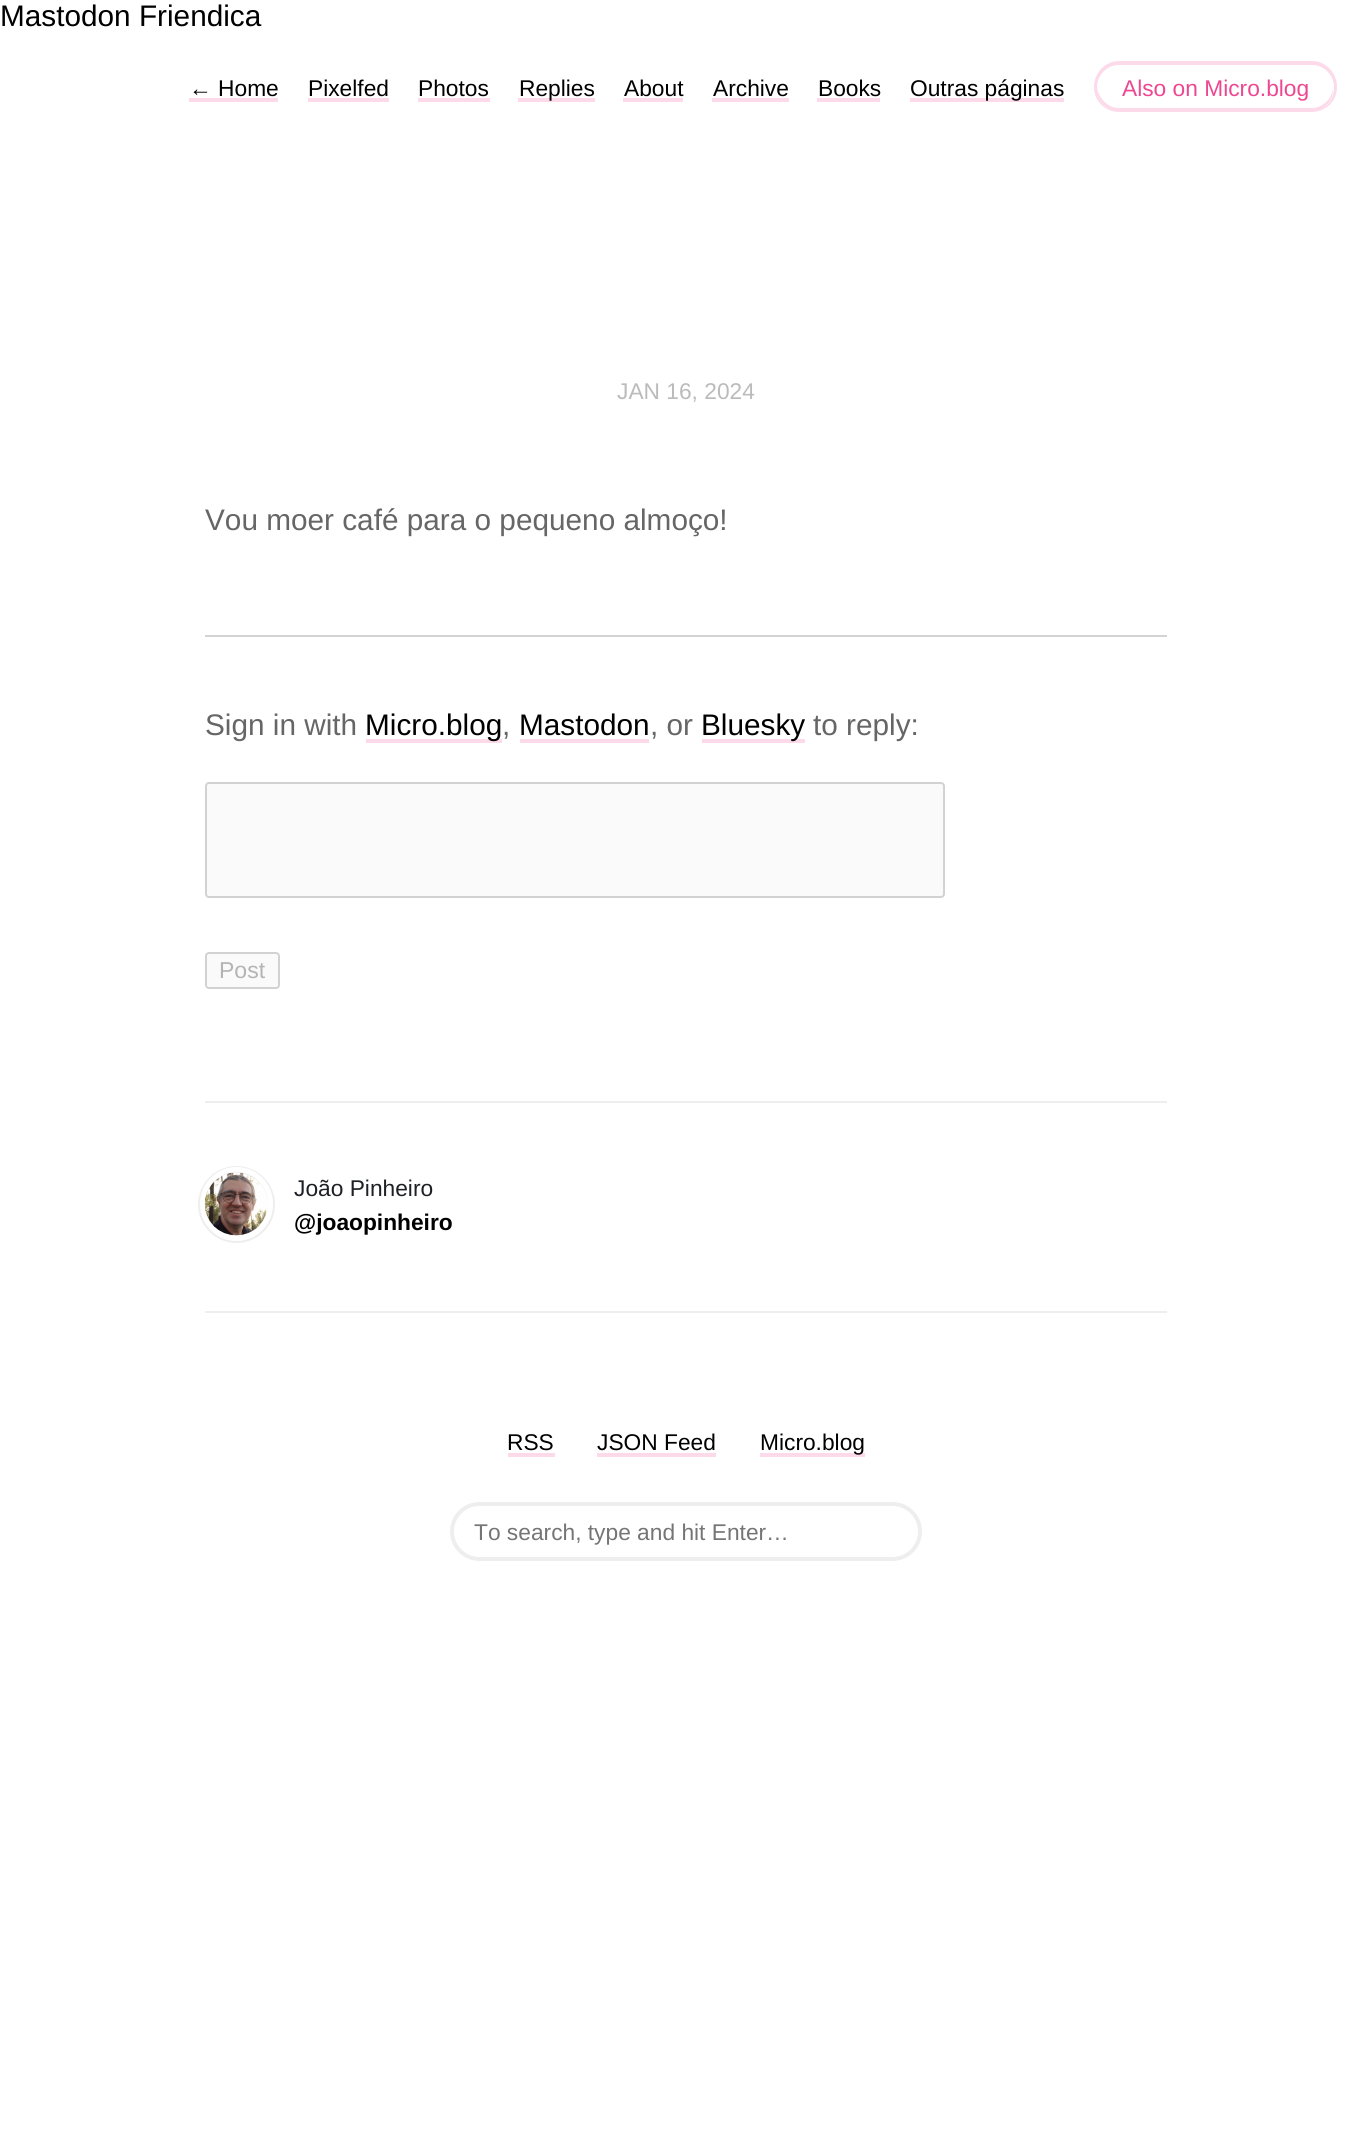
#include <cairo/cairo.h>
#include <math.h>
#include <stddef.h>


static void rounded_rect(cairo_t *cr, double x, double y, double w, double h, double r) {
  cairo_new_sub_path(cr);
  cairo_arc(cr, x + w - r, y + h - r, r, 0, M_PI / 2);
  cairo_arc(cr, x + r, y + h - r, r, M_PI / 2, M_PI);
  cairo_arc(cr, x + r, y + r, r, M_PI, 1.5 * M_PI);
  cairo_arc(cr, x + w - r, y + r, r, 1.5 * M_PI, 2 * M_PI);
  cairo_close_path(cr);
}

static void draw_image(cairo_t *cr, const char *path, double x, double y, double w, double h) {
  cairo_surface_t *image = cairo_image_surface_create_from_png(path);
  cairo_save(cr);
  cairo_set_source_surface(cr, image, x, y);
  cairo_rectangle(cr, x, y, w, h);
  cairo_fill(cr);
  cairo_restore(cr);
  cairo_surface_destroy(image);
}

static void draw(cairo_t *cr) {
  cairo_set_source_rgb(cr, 1, 1, 1);
  cairo_paint(cr);
  cairo_set_source_rgb(cr, 252 / 255.0, 218 / 255.0, 233 / 255.0);
  cairo_rectangle(cr, 189, 98, 89, 4);
  cairo_fill(cr);
  cairo_rectangle(cr, 308, 98, 81, 4);
  cairo_fill(cr);
  cairo_rectangle(cr, 418, 98, 72, 4);
  cairo_fill(cr);
  cairo_rectangle(cr, 518, 98, 77, 4);
  cairo_fill(cr);
  cairo_rectangle(cr, 623, 98, 60, 4);
  cairo_fill(cr);
  cairo_rectangle(cr, 712, 98, 77, 4);
  cairo_fill(cr);
  cairo_rectangle(cr, 817, 98, 63, 4);
  cairo_fill(cr);
  cairo_rectangle(cr, 910, 98, 154, 4);
  cairo_fill(cr);
  cairo_new_path(cr);
  cairo_move_to(cr, 1097, 87);
  cairo_curve_to(cr, 1097, 101, 1107, 112, 1119, 112);
  cairo_line_to(cr, 1312, 112);
  cairo_curve_to(cr, 1323, 112, 1333, 102, 1333, 89);
  cairo_curve_to(cr, 1331, 100, 1322, 108, 1312, 108);
  cairo_line_to(cr, 1119, 108);
  cairo_curve_to(cr, 1108, 108, 1099, 99, 1097, 87);
  cairo_close_path(cr);
  cairo_fill(cr);
  cairo_set_fill_rule(cr, CAIRO_FILL_RULE_EVEN_ODD);
  cairo_new_path(cr);
  cairo_move_to(cr, 1119, 61);
  cairo_line_to(cr, 1312, 61);
  cairo_curve_to(cr, 1326, 61, 1337, 73, 1337, 87);
  cairo_curve_to(cr, 1337, 101, 1326, 112, 1312, 112);
  cairo_line_to(cr, 1119, 112);
  cairo_curve_to(cr, 1105, 112, 1094, 101, 1094, 87);
  cairo_curve_to(cr, 1094, 73, 1105, 61, 1119, 61);
  cairo_close_path(cr);
  cairo_move_to(cr, 1119, 65);
  cairo_line_to(cr, 1312, 65);
  cairo_curve_to(cr, 1324, 65, 1334, 75, 1334, 87);
  cairo_curve_to(cr, 1334, 101, 1324, 112, 1312, 112);
  cairo_line_to(cr, 1119, 112);
  cairo_curve_to(cr, 1107, 112, 1097, 101, 1097, 87);
  cairo_curve_to(cr, 1097, 75, 1107, 65, 1119, 65);
  cairo_close_path(cr);
  cairo_fill(cr);
  cairo_set_source_rgb(cr, 211 / 255.0, 211 / 255.0, 211 / 255.0);
  cairo_rectangle(cr, 205, 635, 962, 2);
  cairo_fill(cr);
  cairo_set_source_rgb(cr, 252 / 255.0, 218 / 255.0, 233 / 255.0);
  cairo_rectangle(cr, 366, 739, 136, 4);
  cairo_fill(cr);
  cairo_rectangle(cr, 520, 739, 129, 4);
  cairo_fill(cr);
  cairo_rectangle(cr, 702, 739, 103, 4);
  cairo_fill(cr);
  cairo_set_source_rgb(cr, 250 / 255.0, 250 / 255.0, 250 / 255.0);
  rounded_rect(cr, 206, 783, 738, 114, 3);
  cairo_fill_preserve(cr);
  cairo_set_source_rgb(cr, 210 / 255.0, 210 / 255.0, 210 / 255.0);
  cairo_stroke(cr);
  cairo_set_source_rgb(cr, 250 / 255.0, 250 / 255.0, 250 / 255.0);
  rounded_rect(cr, 206, 953, 73, 35, 3);
  cairo_fill_preserve(cr);
  cairo_set_source_rgb(cr, 210 / 255.0, 210 / 255.0, 210 / 255.0);
  cairo_stroke(cr);
  cairo_set_source_rgb(cr, 238 / 255.0, 238 / 255.0, 238 / 255.0);
  cairo_rectangle(cr, 205, 1101, 962, 2);
  cairo_fill(cr);
  cairo_rectangle(cr, 205, 1311, 962, 2);
  cairo_fill(cr);
  cairo_arc(cr, 236.5, 1204.5, 35, 0, 2 * M_PI);
  cairo_set_line_width(cr, 7);
  cairo_stroke(cr);
  rounded_rect(cr, 202.5, 1169.5, 68, 69, 34);
  cairo_set_source_rgb(cr, 1, 1, 1);
  cairo_set_line_width(cr, 5);
  cairo_stroke(cr);
  draw_image(cr, "images/1.png", 204, 1172, 63, 64);
  cairo_set_source_rgb(cr, 252 / 255.0, 218 / 255.0, 233 / 255.0);
  cairo_rectangle(cr, 508, 1453, 47, 4);
  cairo_fill(cr);
  cairo_rectangle(cr, 597, 1453, 119, 4);
  cairo_fill(cr);
  cairo_rectangle(cr, 760, 1453, 105, 4);
  cairo_fill(cr);
  rounded_rect(cr, 452, 1504, 468, 55, 27.5);
  cairo_set_source_rgb(cr, 238 / 255.0, 238 / 255.0, 238 / 255.0);
  cairo_set_line_width(cr, 4);
  cairo_stroke(cr);
  cairo_select_font_face(cr, "Liberation Sans", CAIRO_FONT_SLANT_NORMAL, CAIRO_FONT_WEIGHT_NORMAL);
  cairo_set_font_size(cr, 29.75);
  cairo_set_source_rgb(cr, 0, 0, 0);
  cairo_move_to(cr, 0, 26);
  cairo_show_text(cr, "Mastodon Friendica");
  cairo_set_font_size(cr, 22.75);
  cairo_move_to(cr, 189, 96);
  cairo_show_text(cr, "← Home");
  cairo_move_to(cr, 308, 96);
  cairo_show_text(cr, "Pixelfed");
  cairo_move_to(cr, 418, 96);
  cairo_show_text(cr, "Photos");
  cairo_move_to(cr, 519, 96);
  cairo_show_text(cr, "Replies");
  cairo_move_to(cr, 624, 96);
  cairo_show_text(cr, "About");
  cairo_move_to(cr, 713, 96);
  cairo_show_text(cr, "Archive");
  cairo_move_to(cr, 818, 96);
  cairo_show_text(cr, "Books");
  cairo_move_to(cr, 910, 96);
  cairo_show_text(cr, "Outras páginas");
  cairo_set_source_rgb(cr, 238 / 255.0, 71 / 255.0, 146 / 255.0);
  cairo_move_to(cr, 1122, 96);
  cairo_show_text(cr, "Also on Micro.blog");
  cairo_set_source_rgb(cr, 187 / 255.0, 187 / 255.0, 187 / 255.0);
  cairo_move_to(cr, 617, 399);
  cairo_show_text(cr, "JAN 16, 2024");
  cairo_set_font_size(cr, 29.75);
  cairo_set_source_rgb(cr, 102 / 255.0, 102 / 255.0, 102 / 255.0);
  cairo_move_to(cr, 205, 530);
  cairo_show_text(cr, "Vou moer café para o pequeno almoço!");
  cairo_move_to(cr, 205, 735);
  cairo_show_text(cr, "Sign in with");
  cairo_set_source_rgb(cr, 0, 0, 0);
  cairo_move_to(cr, 365, 735);
  cairo_show_text(cr, "Micro.blog");
  cairo_set_source_rgb(cr, 102 / 255.0, 102 / 255.0, 102 / 255.0);
  cairo_move_to(cr, 502, 735);
  cairo_show_text(cr, ",");
  cairo_set_source_rgb(cr, 0, 0, 0);
  cairo_move_to(cr, 519, 735);
  cairo_show_text(cr, "Mastodon");
  cairo_set_source_rgb(cr, 102 / 255.0, 102 / 255.0, 102 / 255.0);
  cairo_move_to(cr, 650, 735);
  cairo_show_text(cr, ", or");
  cairo_set_source_rgb(cr, 0, 0, 0);
  cairo_move_to(cr, 701, 735);
  cairo_show_text(cr, "Bluesky");
  cairo_set_source_rgb(cr, 102 / 255.0, 102 / 255.0, 102 / 255.0);
  cairo_move_to(cr, 813, 735);
  cairo_show_text(cr, "to reply:");
  cairo_set_font_size(cr, 23);
  cairo_set_source_rgb(cr, 180 / 255.0, 180 / 255.0, 180 / 255.0);
  cairo_move_to(cr, 219, 978);
  cairo_show_text(cr, "Post");
  cairo_set_font_size(cr, 22.75);
  cairo_set_source_rgb(cr, 30 / 255.0, 32 / 255.0, 37 / 255.0);
  cairo_move_to(cr, 294, 1196);
  cairo_show_text(cr, "João Pinheiro");
  cairo_select_font_face(cr, "Liberation Sans", CAIRO_FONT_SLANT_NORMAL, CAIRO_FONT_WEIGHT_BOLD);
  cairo_set_source_rgb(cr, 0, 0, 0);
  cairo_move_to(cr, 294, 1230);
  cairo_show_text(cr, "@joaopinheiro");
  cairo_select_font_face(cr, "Liberation Sans", CAIRO_FONT_SLANT_NORMAL, CAIRO_FONT_WEIGHT_NORMAL);
  cairo_move_to(cr, 507, 1450);
  cairo_show_text(cr, "RSS");
  cairo_move_to(cr, 597, 1450);
  cairo_show_text(cr, "JSON Feed");
  cairo_move_to(cr, 760, 1450);
  cairo_show_text(cr, "Micro.blog");
  cairo_set_source_rgb(cr, 117 / 255.0, 117 / 255.0, 117 / 255.0);
  cairo_move_to(cr, 474, 1540);
  cairo_show_text(cr, "To search, type and hit Enter…");
}

int main(void) {
  cairo_surface_t *surface = cairo_image_surface_create(CAIRO_FORMAT_RGB24, 1372, 2135);
  cairo_t *cr = cairo_create(surface);
  cairo_font_options_t *options = cairo_font_options_create();
  cairo_font_options_set_hint_metrics(options, CAIRO_HINT_METRICS_OFF);
  cairo_font_options_set_hint_style(options, CAIRO_HINT_STYLE_NONE);
  cairo_set_font_options(cr, options);
  cairo_set_miter_limit(cr, 4);
  draw(cr);
  cairo_surface_write_to_png(surface, "out.png");
  cairo_font_options_destroy(options);
  cairo_destroy(cr);
  cairo_surface_destroy(surface);
  return 0;
}
